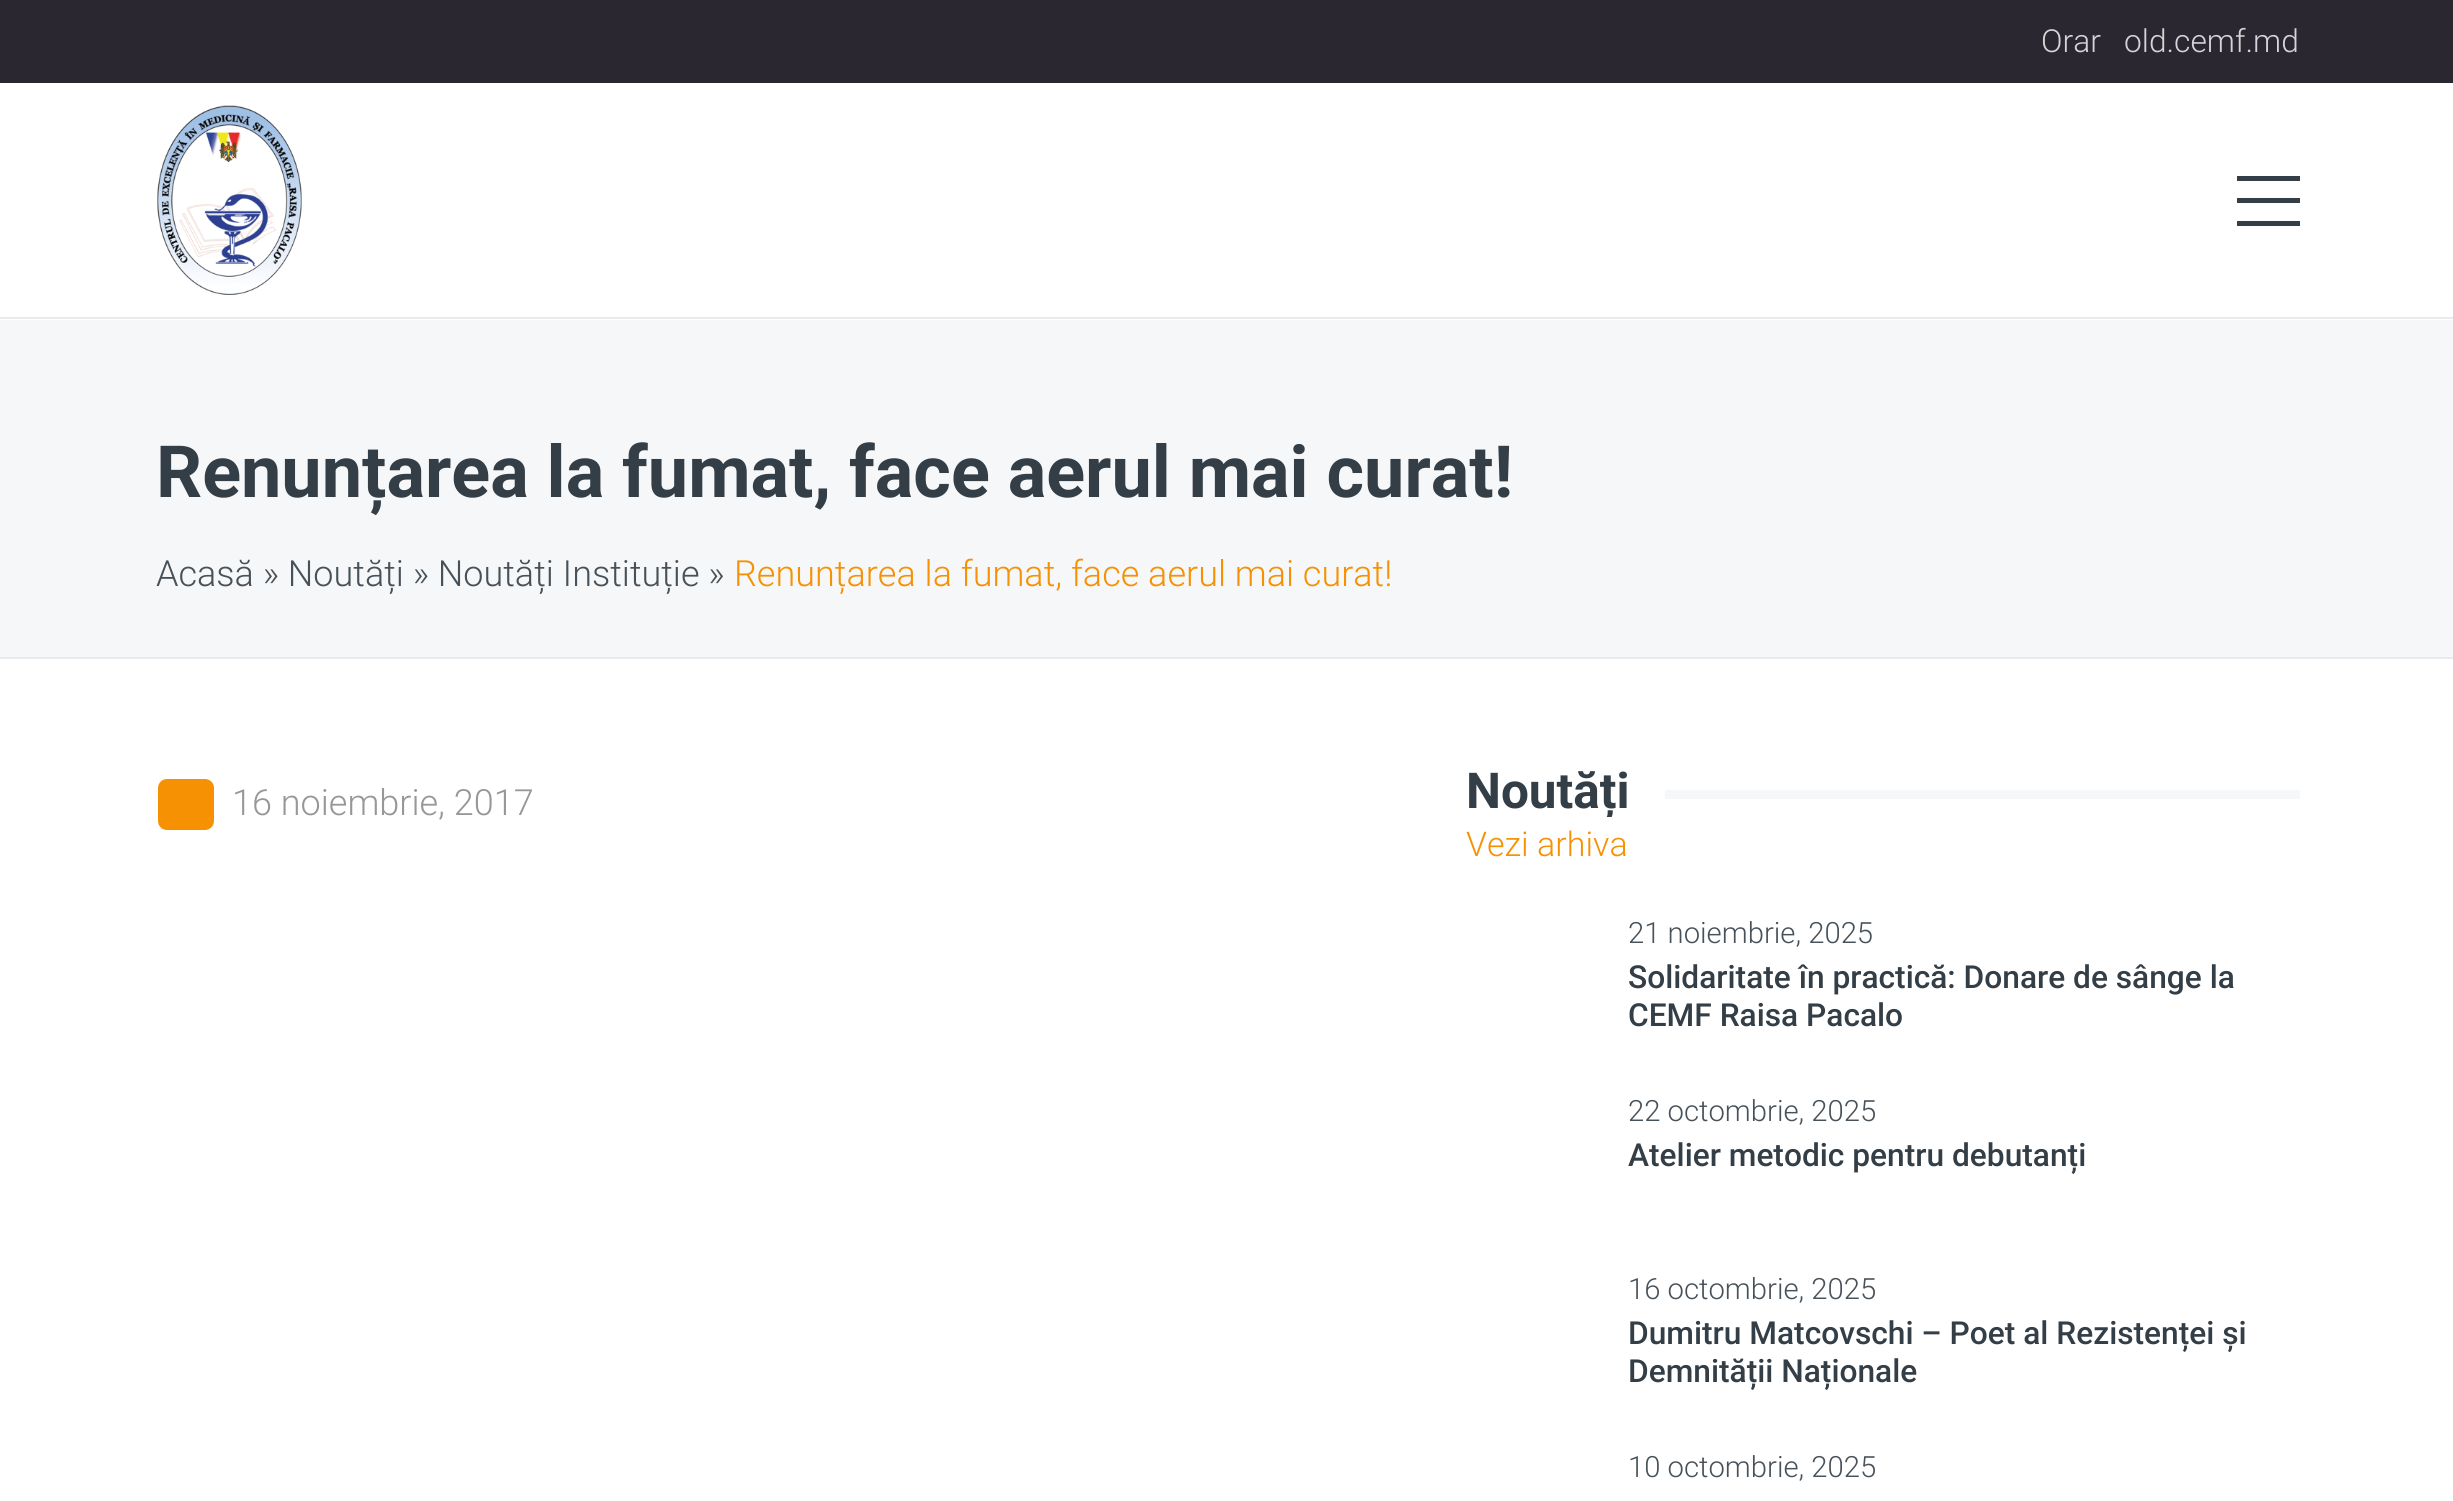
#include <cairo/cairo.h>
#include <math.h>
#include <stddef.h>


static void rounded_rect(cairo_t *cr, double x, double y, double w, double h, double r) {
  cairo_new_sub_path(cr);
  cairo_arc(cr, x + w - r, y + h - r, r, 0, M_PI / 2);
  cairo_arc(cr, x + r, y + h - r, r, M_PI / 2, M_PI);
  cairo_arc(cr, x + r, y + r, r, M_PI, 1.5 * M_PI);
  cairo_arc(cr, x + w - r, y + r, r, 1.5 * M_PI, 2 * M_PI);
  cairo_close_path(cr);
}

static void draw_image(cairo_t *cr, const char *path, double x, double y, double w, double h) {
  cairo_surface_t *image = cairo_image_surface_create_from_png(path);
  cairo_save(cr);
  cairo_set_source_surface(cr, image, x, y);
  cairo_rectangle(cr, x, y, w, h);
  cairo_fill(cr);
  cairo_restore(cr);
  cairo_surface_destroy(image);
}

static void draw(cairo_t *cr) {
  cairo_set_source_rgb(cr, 1, 1, 1);
  cairo_paint(cr);
  cairo_set_source_rgb(cr, 232 / 255.0, 235 / 255.0, 238 / 255.0);
  cairo_rectangle(cr, 0, 317, 2453, 2);
  cairo_fill(cr);
  cairo_set_source_rgb(cr, 43 / 255.0, 39 / 255.0, 48 / 255.0);
  cairo_rectangle(cr, 0, 0, 2453, 83);
  cairo_fill(cr);
  draw_image(cr, "images/1.png", 157, 105, 145, 190);
  cairo_set_source_rgb(cr, 51 / 255.0, 62 / 255.0, 71 / 255.0);
  cairo_rectangle(cr, 2237, 176, 63, 5);
  cairo_fill(cr);
  cairo_rectangle(cr, 2237, 198, 63, 5);
  cairo_fill(cr);
  cairo_rectangle(cr, 2237, 221, 63, 5);
  cairo_fill(cr);
  cairo_set_source_rgb(cr, 246 / 255.0, 247 / 255.0, 248 / 255.0);
  cairo_rectangle(cr, 0, 320, 2453, 337);
  cairo_fill(cr);
  cairo_set_source_rgb(cr, 232 / 255.0, 235 / 255.0, 238 / 255.0);
  cairo_rectangle(cr, 0, 657, 2453, 2);
  cairo_fill(cr);
  cairo_set_source_rgb(cr, 246 / 255.0, 145 / 255.0, 4 / 255.0);
  rounded_rect(cr, 158, 779, 56, 51, 9);
  cairo_fill(cr);
  cairo_set_source_rgb(cr, 246 / 255.0, 247 / 255.0, 248 / 255.0);
  cairo_rectangle(cr, 1665, 790, 635, 9);
  cairo_fill(cr);
  cairo_select_font_face(cr, "Roboto Light", CAIRO_FONT_SLANT_NORMAL, CAIRO_FONT_WEIGHT_NORMAL);
  cairo_set_font_size(cr, 31.7);
  cairo_set_source_rgb(cr, 213 / 255.0, 212 / 255.0, 214 / 255.0);
  cairo_move_to(cr, 2041, 52);
  cairo_show_text(cr, "Orar");
  cairo_move_to(cr, 2124, 52);
  cairo_show_text(cr, "old.cemf.md");
  cairo_select_font_face(cr, "Roboto", CAIRO_FONT_SLANT_NORMAL, CAIRO_FONT_WEIGHT_BOLD);
  cairo_set_font_size(cr, 72);
  cairo_set_source_rgb(cr, 51 / 255.0, 62 / 255.0, 71 / 255.0);
  cairo_move_to(cr, 156, 497);
  cairo_show_text(cr, "Renunțarea la fumat, face aerul mai curat!");
  cairo_select_font_face(cr, "Roboto Light", CAIRO_FONT_SLANT_NORMAL, CAIRO_FONT_WEIGHT_NORMAL);
  cairo_set_font_size(cr, 36);
  cairo_set_source_rgb(cr, 71 / 255.0, 81 / 255.0, 89 / 255.0);
  cairo_move_to(cr, 156, 586);
  cairo_show_text(cr, "Acasă » Noutăți » Noutăți Instituție »");
  cairo_set_source_rgb(cr, 246 / 255.0, 145 / 255.0, 4 / 255.0);
  cairo_move_to(cr, 734, 586);
  cairo_show_text(cr, "Renunțarea la fumat, face aerul mai curat!");
  cairo_set_source_rgb(cr, 151 / 255.0, 151 / 255.0, 151 / 255.0);
  cairo_move_to(cr, 232, 815);
  cairo_show_text(cr, "16 noiembrie, 2017");
  cairo_save(cr);
  cairo_rectangle(cr, 1467, 767, 833, 50);
  cairo_clip(cr);
  cairo_select_font_face(cr, "Roboto", CAIRO_FONT_SLANT_NORMAL, CAIRO_FONT_WEIGHT_BOLD);
  cairo_set_font_size(cr, 49.5);
  cairo_set_source_rgb(cr, 51 / 255.0, 62 / 255.0, 71 / 255.0);
  cairo_move_to(cr, 1466, 808);
  cairo_show_text(cr, "Noutăți");
  cairo_restore(cr);
  cairo_set_font_size(cr, 34);
  cairo_set_source_rgb(cr, 246 / 255.0, 145 / 255.0, 4 / 255.0);
  cairo_move_to(cr, 1466, 856);
  cairo_show_text(cr, "Vezi arhiva");
  cairo_set_font_size(cr, 29.25);
  cairo_set_source_rgb(cr, 71 / 255.0, 81 / 255.0, 89 / 255.0);
  cairo_move_to(cr, 1628, 943);
  cairo_show_text(cr, "21 noiembrie, 2025");
  cairo_select_font_face(cr, "Roboto Medium", CAIRO_FONT_SLANT_NORMAL, CAIRO_FONT_WEIGHT_NORMAL);
  cairo_set_font_size(cr, 31.7);
  cairo_set_source_rgb(cr, 51 / 255.0, 62 / 255.0, 71 / 255.0);
  cairo_move_to(cr, 1628, 988);
  cairo_show_text(cr, "Solidaritate în practică: Donare de sânge la");
  cairo_move_to(cr, 1628, 1026);
  cairo_show_text(cr, "CEMF Raisa Pacalo");
  cairo_select_font_face(cr, "Roboto Light", CAIRO_FONT_SLANT_NORMAL, CAIRO_FONT_WEIGHT_NORMAL);
  cairo_set_font_size(cr, 29.25);
  cairo_set_source_rgb(cr, 71 / 255.0, 81 / 255.0, 89 / 255.0);
  cairo_move_to(cr, 1628, 1121);
  cairo_show_text(cr, "22 octombrie, 2025");
  cairo_select_font_face(cr, "Roboto Medium", CAIRO_FONT_SLANT_NORMAL, CAIRO_FONT_WEIGHT_NORMAL);
  cairo_set_font_size(cr, 31.7);
  cairo_set_source_rgb(cr, 51 / 255.0, 62 / 255.0, 71 / 255.0);
  cairo_move_to(cr, 1628, 1166);
  cairo_show_text(cr, "Atelier metodic pentru debutanți");
  cairo_select_font_face(cr, "Roboto Light", CAIRO_FONT_SLANT_NORMAL, CAIRO_FONT_WEIGHT_NORMAL);
  cairo_set_font_size(cr, 29.25);
  cairo_set_source_rgb(cr, 71 / 255.0, 81 / 255.0, 89 / 255.0);
  cairo_move_to(cr, 1628, 1299);
  cairo_show_text(cr, "16 octombrie, 2025");
  cairo_select_font_face(cr, "Roboto Medium", CAIRO_FONT_SLANT_NORMAL, CAIRO_FONT_WEIGHT_NORMAL);
  cairo_set_font_size(cr, 31.7);
  cairo_set_source_rgb(cr, 51 / 255.0, 62 / 255.0, 71 / 255.0);
  cairo_move_to(cr, 1628, 1344);
  cairo_show_text(cr, "Dumitru Matcovschi – Poet al Rezistenței și");
  cairo_move_to(cr, 1628, 1382);
  cairo_show_text(cr, "Demnității Naționale");
  cairo_select_font_face(cr, "Roboto Light", CAIRO_FONT_SLANT_NORMAL, CAIRO_FONT_WEIGHT_NORMAL);
  cairo_set_font_size(cr, 29.25);
  cairo_set_source_rgb(cr, 71 / 255.0, 81 / 255.0, 89 / 255.0);
  cairo_move_to(cr, 1628, 1477);
  cairo_show_text(cr, "10 octombrie, 2025");
}

int main(void) {
  cairo_surface_t *surface = cairo_image_surface_create(CAIRO_FORMAT_RGB24, 2453, 1501);
  cairo_t *cr = cairo_create(surface);
  cairo_font_options_t *options = cairo_font_options_create();
  cairo_font_options_set_hint_metrics(options, CAIRO_HINT_METRICS_OFF);
  cairo_font_options_set_hint_style(options, CAIRO_HINT_STYLE_NONE);
  cairo_set_font_options(cr, options);
  cairo_set_miter_limit(cr, 4);
  draw(cr);
  cairo_surface_write_to_png(surface, "out.png");
  cairo_font_options_destroy(options);
  cairo_destroy(cr);
  cairo_surface_destroy(surface);
  return 0;
}
